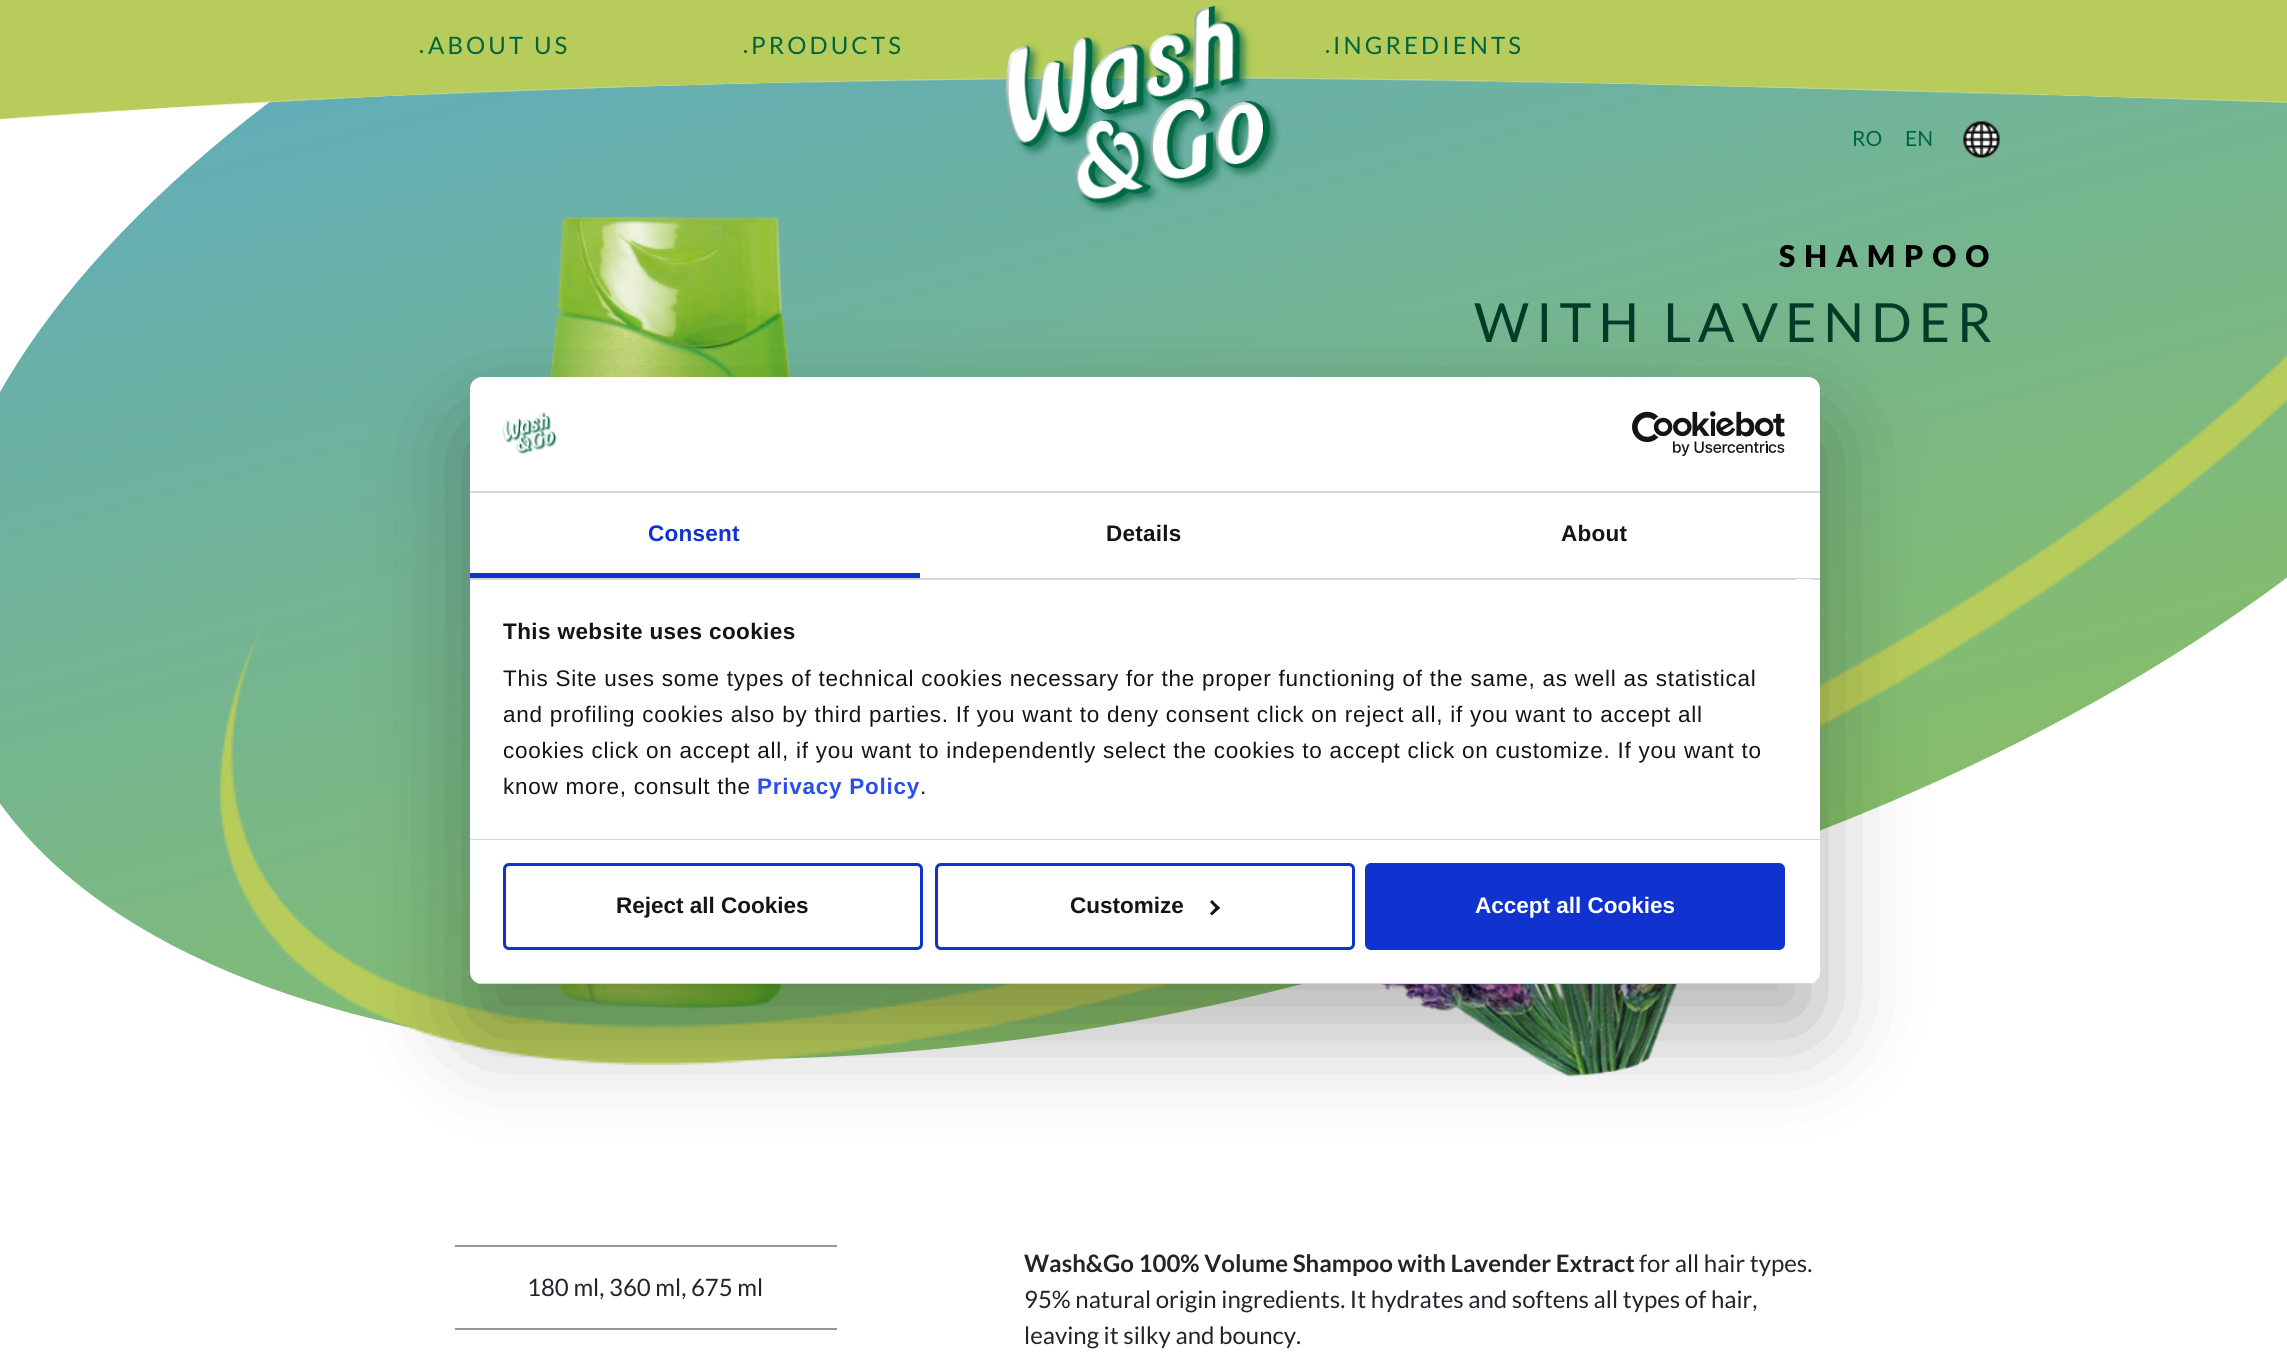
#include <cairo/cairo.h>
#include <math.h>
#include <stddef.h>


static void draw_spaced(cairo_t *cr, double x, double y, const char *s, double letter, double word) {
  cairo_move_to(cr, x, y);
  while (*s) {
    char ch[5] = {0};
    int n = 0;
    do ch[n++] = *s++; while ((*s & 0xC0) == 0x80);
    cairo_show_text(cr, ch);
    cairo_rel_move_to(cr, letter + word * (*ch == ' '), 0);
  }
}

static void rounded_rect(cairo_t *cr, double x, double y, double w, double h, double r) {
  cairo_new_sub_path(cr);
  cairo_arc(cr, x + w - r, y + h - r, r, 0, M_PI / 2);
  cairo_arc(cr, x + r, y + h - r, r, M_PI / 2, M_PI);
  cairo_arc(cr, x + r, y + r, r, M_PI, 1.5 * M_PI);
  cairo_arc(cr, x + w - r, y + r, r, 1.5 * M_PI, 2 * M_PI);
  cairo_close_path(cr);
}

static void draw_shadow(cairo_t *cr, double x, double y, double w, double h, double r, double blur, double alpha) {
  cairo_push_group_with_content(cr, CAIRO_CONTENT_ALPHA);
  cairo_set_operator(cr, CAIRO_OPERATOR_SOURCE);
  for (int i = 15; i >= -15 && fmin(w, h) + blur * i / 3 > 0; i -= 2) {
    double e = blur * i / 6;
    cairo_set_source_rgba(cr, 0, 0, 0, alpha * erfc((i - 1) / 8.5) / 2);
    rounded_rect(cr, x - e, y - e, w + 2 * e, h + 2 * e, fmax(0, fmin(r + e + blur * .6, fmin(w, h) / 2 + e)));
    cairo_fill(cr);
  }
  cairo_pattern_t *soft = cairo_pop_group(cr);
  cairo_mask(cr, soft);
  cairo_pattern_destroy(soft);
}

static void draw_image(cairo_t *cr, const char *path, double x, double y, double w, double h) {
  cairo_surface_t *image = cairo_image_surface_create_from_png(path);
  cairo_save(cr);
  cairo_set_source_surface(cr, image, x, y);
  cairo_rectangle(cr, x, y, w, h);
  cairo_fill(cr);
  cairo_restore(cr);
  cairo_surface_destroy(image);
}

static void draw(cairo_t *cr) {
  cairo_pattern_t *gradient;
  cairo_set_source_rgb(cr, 1, 1, 1);
  cairo_paint(cr);
  gradient = cairo_pattern_create_linear(1119, -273, 1445, 946);
  cairo_pattern_add_color_stop_rgba(gradient, 0, 94 / 255.0, 171 / 255.0, 193 / 255.0, 1);
  cairo_pattern_add_color_stop_rgba(gradient, 1, 135 / 255.0, 190 / 255.0, 104 / 255.0, 1);
  cairo_set_source(cr, gradient);
  cairo_pattern_destroy(gradient);
  cairo_new_path(cr);
  cairo_move_to(cr, 1003, -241);
  cairo_line_to(cr, 1235, -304);
  cairo_curve_to(cr, 1908, -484, 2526, -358, 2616, -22);
  cairo_line_to(cr, 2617, -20);
  cairo_curve_to(cr, 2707, 316, 2234, 735, 1561, 915);
  cairo_line_to(cr, 1329, 977);
  cairo_curve_to(cr, 656, 1157, 38, 1031, -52, 695);
  cairo_line_to(cr, -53, 694);
  cairo_curve_to(cr, -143, 358, 330, -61, 1003, -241);
  cairo_close_path(cr);
  cairo_fill(cr);
  draw_image(cr, "images/3.png", 268, 77, 2019, 26);
  draw_image(cr, "images/2.png", 0, 0, 2287, 120);
  draw_image(cr, "images/1.png", 1005, 5, 276, 209);
  cairo_set_source_rgb(cr, 0, 101 / 255.0, 63 / 255.0);
  cairo_arc(cr, 421.5, 51.5, 1.5, 0, 2 * M_PI);
  cairo_fill(cr);
  cairo_arc(cr, 745.5, 51.5, 1.5, 0, 2 * M_PI);
  cairo_fill(cr);
  cairo_arc(cr, 1327.5, 51.5, 1.5, 0, 2 * M_PI);
  cairo_fill(cr);
  draw_image(cr, "images/4.png", 1963, 121, 37, 37);
  draw_image(cr, "images/7.png", 219, 354, 2068, 711);
  draw_image(cr, "images/5.png", 550, 216, 241, 793);
  draw_image(cr, "images/6.png", 1380, 984, 298, 93);
  cairo_set_source_rgb(cr, 151 / 255.0, 151 / 255.0, 151 / 255.0);
  cairo_rectangle(cr, 455, 1245, 382, 2);
  cairo_fill(cr);
  cairo_rectangle(cr, 455, 1328, 382, 2);
  cairo_fill(cr);
  cairo_set_source_rgb(cr, 0, 0, 0);
  draw_shadow(cr, 470, 425, 1350, 607, 12, 51, 0.3);
  cairo_set_source_rgb(cr, 1, 1, 1);
  rounded_rect(cr, 470, 377, 1350, 607, 12);
  cairo_fill(cr);
  cairo_set_source_rgb(cr, 214 / 255.0, 214 / 255.0, 214 / 255.0);
  cairo_rectangle(cr, 470, 491, 1350, 2);
  cairo_fill(cr);
  draw_image(cr, "images/8.png", 502, 412, 55, 43);
  draw_image(cr, "images/9.png", 1632, 411, 153, 45);
  cairo_rectangle(cr, 470, 578, 1350, 2);
  cairo_fill(cr);
  cairo_set_source_rgb(cr, 16 / 255.0, 50 / 255.0, 207 / 255.0);
  cairo_rectangle(cr, 470, 573, 450, 5);
  cairo_fill(cr);
  cairo_set_source_rgb(cr, 214 / 255.0, 214 / 255.0, 214 / 255.0);
  cairo_rectangle(cr, 470, 839, 1350, 1);
  cairo_fill(cr);
  cairo_set_source_rgb(cr, 1, 1, 1);
  cairo_rectangle(cr, 1797, 579, 14, 1);
  cairo_fill(cr);
  cairo_save(cr);
  rounded_rect(cr, 470, 377, 1350, 607, 12);
  cairo_clip(cr);
  cairo_set_source_rgb(cr, 214 / 255.0, 214 / 255.0, 214 / 255.0);
  cairo_rectangle(cr, 470, 983, 1350, 1);
  cairo_fill(cr);
  cairo_restore(cr);
  rounded_rect(cr, 504.5, 864.5, 417, 84, 4.5);
  cairo_set_source_rgb(cr, 16 / 255.0, 50 / 255.0, 207 / 255.0);
  cairo_set_line_width(cr, 3);
  cairo_stroke(cr);
  rounded_rect(cr, 936.5, 864.5, 417, 84, 4.5);
  cairo_stroke(cr);
  cairo_set_source_rgb(cr, 20 / 255.0, 20 / 255.0, 20 / 255.0);
  cairo_new_path(cr);
  cairo_move_to(cr, 1212, 900);
  cairo_line_to(cr, 1220, 908);
  cairo_line_to(cr, 1217.5, 910);
  cairo_line_to(cr, 1210, 902);
  cairo_close_path(cr);
  cairo_fill(cr);
  cairo_new_path(cr);
  cairo_move_to(cr, 1217.5, 905.5);
  cairo_line_to(cr, 1220, 908);
  cairo_line_to(cr, 1212, 915.5);
  cairo_line_to(cr, 1210, 913.5);
  cairo_close_path(cr);
  cairo_fill(cr);
  cairo_set_source_rgb(cr, 16 / 255.0, 50 / 255.0, 207 / 255.0);
  rounded_rect(cr, 1366.5, 864.5, 417, 84, 4.5);
  cairo_fill_preserve(cr);
  cairo_stroke(cr);
  cairo_select_font_face(cr, "Lato", CAIRO_FONT_SLANT_NORMAL, CAIRO_FONT_WEIGHT_NORMAL);
  cairo_set_font_size(cr, 24);
  cairo_set_source_rgb(cr, 0, 101 / 255.0, 63 / 255.0);
  draw_spaced(cr, 428, 54, "ABOUT US", 3.1, 0);
  draw_spaced(cr, 751, 54, "PRODUCTS", 3.1, 0);
  draw_spaced(cr, 1333, 54, "INGREDIENTS", 3.1, 0);
  cairo_set_font_size(cr, 21);
  cairo_move_to(cr, 1852, 146);
  cairo_show_text(cr, "RO");
  cairo_move_to(cr, 1905, 146);
  cairo_show_text(cr, "EN");
  cairo_select_font_face(cr, "Lato Black", CAIRO_FONT_SLANT_NORMAL, CAIRO_FONT_WEIGHT_NORMAL);
  cairo_set_font_size(cr, 30);
  cairo_set_source_rgb(cr, 0, 0, 0);
  draw_spaced(cr, 1779, 267, "SHAMPOO", 9, 0);
  cairo_select_font_face(cr, "Lato", CAIRO_FONT_SLANT_NORMAL, CAIRO_FONT_WEIGHT_NORMAL);
  cairo_set_font_size(cr, 54);
  cairo_set_source_rgb(cr, 0, 60 / 255.0, 39 / 255.0);
  draw_spaced(cr, 1474, 342, "WITH LAVENDER", 6.9, 0);
  cairo_set_font_size(cr, 24);
  cairo_set_source_rgb(cr, 33 / 255.0, 37 / 255.0, 41 / 255.0);
  cairo_move_to(cr, 527, 1296);
  cairo_show_text(cr, "180 ml, 360 ml, 675 ml");
  cairo_select_font_face(cr, "Lato", CAIRO_FONT_SLANT_NORMAL, CAIRO_FONT_WEIGHT_BOLD);
  cairo_move_to(cr, 1024, 1272);
  cairo_show_text(cr, "Wash&Go 100% Volume Shampoo with Lavender Extract");
  cairo_select_font_face(cr, "Lato", CAIRO_FONT_SLANT_NORMAL, CAIRO_FONT_WEIGHT_NORMAL);
  cairo_move_to(cr, 1639, 1272);
  cairo_show_text(cr, "for all hair types.");
  cairo_move_to(cr, 1024, 1308);
  cairo_show_text(cr, "95% natural origin ingredients. It hydrates and softens all types of hair,");
  cairo_move_to(cr, 1024, 1344);
  cairo_show_text(cr, "leaving it silky and bouncy.");
  cairo_select_font_face(cr, "Liberation Sans", CAIRO_FONT_SLANT_NORMAL, CAIRO_FONT_WEIGHT_BOLD);
  cairo_set_font_size(cr, 22.5);
  cairo_set_source_rgb(cr, 16 / 255.0, 50 / 255.0, 207 / 255.0);
  draw_spaced(cr, 648, 541, "Consent", 0.25, 0);
  cairo_set_source_rgb(cr, 20 / 255.0, 20 / 255.0, 20 / 255.0);
  draw_spaced(cr, 1106, 541, "Details", 0.25, 0);
  draw_spaced(cr, 1561, 541, "About", 0.25, 0);
  draw_spaced(cr, 503, 639, "This website uses cookies", 0.4, 0);
  cairo_select_font_face(cr, "Liberation Sans", CAIRO_FONT_SLANT_NORMAL, CAIRO_FONT_WEIGHT_NORMAL);
  draw_spaced(cr, 503, 686, "This Site uses some types of technical cookies necessary for the proper functioning of the same, as well as statistical", 0.75, 0);
  draw_spaced(cr, 503, 722, "and profiling cookies also by third parties. If you want to deny consent click on reject all, if you want to accept all", 0.75, 0);
  draw_spaced(cr, 503, 758, "cookies click on accept all, if you want to independently select the cookies to accept click on customize. If you want to", 0.75, 0);
  draw_spaced(cr, 503, 794, "know more, consult the", 0.75, 0);
  cairo_select_font_face(cr, "Liberation Sans", CAIRO_FONT_SLANT_NORMAL, CAIRO_FONT_WEIGHT_BOLD);
  cairo_set_source_rgb(cr, 42 / 255.0, 78 / 255.0, 239 / 255.0);
  draw_spaced(cr, 757, 794, "Privacy Policy", 0.75, 0);
  cairo_select_font_face(cr, "Liberation Sans", CAIRO_FONT_SLANT_NORMAL, CAIRO_FONT_WEIGHT_NORMAL);
  cairo_set_source_rgb(cr, 20 / 255.0, 20 / 255.0, 20 / 255.0);
  draw_spaced(cr, 920, 794, ".", 0.75, 0);
  cairo_select_font_face(cr, "Liberation Sans", CAIRO_FONT_SLANT_NORMAL, CAIRO_FONT_WEIGHT_BOLD);
  cairo_move_to(cr, 616, 913);
  cairo_show_text(cr, "Reject all Cookies");
  cairo_move_to(cr, 1070, 913);
  cairo_show_text(cr, "Customize");
  cairo_set_source_rgb(cr, 1, 1, 1);
  cairo_move_to(cr, 1475, 913);
  cairo_show_text(cr, "Accept all Cookies");
}

int main(void) {
  cairo_surface_t *surface = cairo_image_surface_create(CAIRO_FORMAT_RGB24, 2287, 1360);
  cairo_t *cr = cairo_create(surface);
  cairo_font_options_t *options = cairo_font_options_create();
  cairo_font_options_set_hint_metrics(options, CAIRO_HINT_METRICS_OFF);
  cairo_font_options_set_hint_style(options, CAIRO_HINT_STYLE_NONE);
  cairo_set_font_options(cr, options);
  cairo_set_miter_limit(cr, 4);
  draw(cr);
  cairo_surface_write_to_png(surface, "out.png");
  cairo_font_options_destroy(options);
  cairo_destroy(cr);
  cairo_surface_destroy(surface);
  return 0;
}
